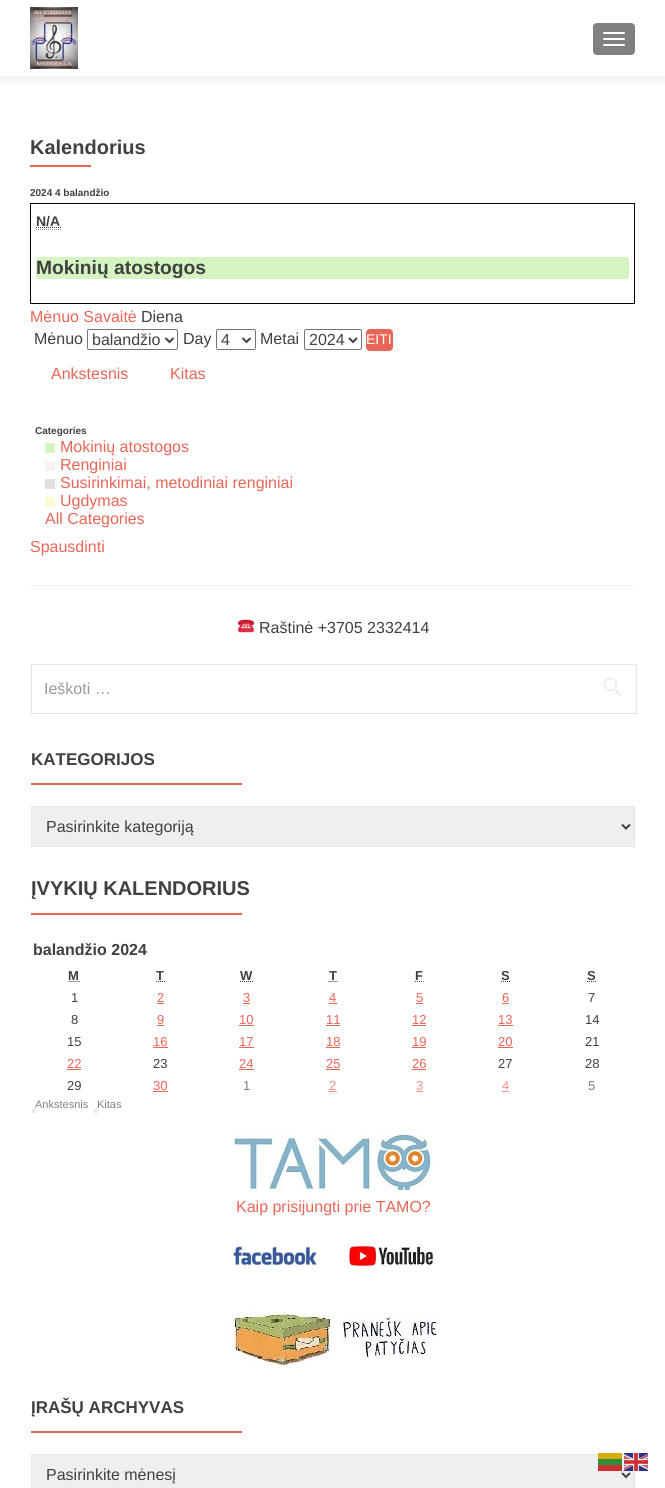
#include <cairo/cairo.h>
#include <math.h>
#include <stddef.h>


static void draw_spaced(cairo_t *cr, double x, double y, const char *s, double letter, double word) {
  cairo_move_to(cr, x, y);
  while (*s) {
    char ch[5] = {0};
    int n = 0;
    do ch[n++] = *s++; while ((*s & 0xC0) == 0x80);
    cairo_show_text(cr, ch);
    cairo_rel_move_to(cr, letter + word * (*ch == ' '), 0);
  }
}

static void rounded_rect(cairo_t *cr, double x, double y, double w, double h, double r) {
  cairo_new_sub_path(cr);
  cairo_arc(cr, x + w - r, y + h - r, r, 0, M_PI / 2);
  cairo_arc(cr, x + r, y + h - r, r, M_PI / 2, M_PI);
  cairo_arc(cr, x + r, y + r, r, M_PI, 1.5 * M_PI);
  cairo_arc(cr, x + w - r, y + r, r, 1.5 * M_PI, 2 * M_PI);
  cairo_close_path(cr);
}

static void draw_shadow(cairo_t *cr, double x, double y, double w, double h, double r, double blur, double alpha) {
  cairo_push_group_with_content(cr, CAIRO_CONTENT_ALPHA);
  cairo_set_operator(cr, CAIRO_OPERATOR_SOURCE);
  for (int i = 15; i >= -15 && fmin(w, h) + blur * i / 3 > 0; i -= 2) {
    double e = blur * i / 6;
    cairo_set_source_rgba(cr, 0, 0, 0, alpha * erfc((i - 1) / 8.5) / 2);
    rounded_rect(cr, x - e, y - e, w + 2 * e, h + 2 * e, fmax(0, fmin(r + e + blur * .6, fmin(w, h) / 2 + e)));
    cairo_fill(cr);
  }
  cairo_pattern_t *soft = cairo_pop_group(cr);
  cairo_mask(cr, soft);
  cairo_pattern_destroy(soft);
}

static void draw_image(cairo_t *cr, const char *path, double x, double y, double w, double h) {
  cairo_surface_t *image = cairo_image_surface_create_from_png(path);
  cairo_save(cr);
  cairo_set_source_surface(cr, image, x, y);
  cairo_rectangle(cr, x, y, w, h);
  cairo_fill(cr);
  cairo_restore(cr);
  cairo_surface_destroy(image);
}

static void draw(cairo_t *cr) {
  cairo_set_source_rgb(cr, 1, 1, 1);
  cairo_paint(cr);
  cairo_save(cr);
  cairo_rectangle(cr, 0, 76, 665, 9);
  cairo_clip(cr);
  cairo_set_source_rgb(cr, 50 / 255.0, 50 / 255.0, 50 / 255.0);
  draw_shadow(cr, 0, 5, 665, 76, 0, 5.5, 0.08);
  cairo_restore(cr);
  draw_image(cr, "images/1.png", 30, 7, 48, 62);
  cairo_set_source_rgb(cr, 128 / 255.0, 128 / 255.0, 128 / 255.0);
  rounded_rect(cr, 593, 23, 42, 32, 4);
  cairo_fill(cr);
  cairo_set_source_rgb(cr, 1, 1, 1);
  rounded_rect(cr, 603, 32, 22, 2, 1);
  cairo_fill(cr);
  rounded_rect(cr, 603, 38, 22, 2, 1);
  cairo_fill(cr);
  rounded_rect(cr, 603, 44, 22, 2, 1);
  cairo_fill(cr);
  cairo_set_source_rgb(cr, 242 / 255.0, 242 / 255.0, 242 / 255.0);
  cairo_rectangle(cr, 30, 585, 605, 1);
  cairo_fill(cr);
  cairo_set_source_rgb(cr, 233 / 255.0, 102 / 255.0, 86 / 255.0);
  cairo_rectangle(cr, 30, 165, 61, 2);
  cairo_fill(cr);
  cairo_rectangle(cr, 30.5, 203.5, 604, 100);
  cairo_set_source_rgb(cr, 0, 0, 0);
  cairo_set_line_width(cr, 1);
  cairo_stroke(cr);
  cairo_new_path(cr);
  cairo_move_to(cr, 36, 229.5);
  cairo_line_to(cr, 61, 229.5);
  cairo_set_source_rgb(cr, 153 / 255.0, 153 / 255.0, 153 / 255.0);
  cairo_set_dash(cr, (double[]){1, 1}, 2, 0);
  cairo_stroke(cr);
  cairo_new_path(cr);
  cairo_move_to(cr, 36, 227.5);
  cairo_line_to(cr, 61, 227.5);
  cairo_set_source_rgb(cr, 64 / 255.0, 64 / 255.0, 64 / 255.0);
  cairo_stroke(cr);
  cairo_set_source_rgb(cr, 213 / 255.0, 244 / 255.0, 193 / 255.0);
  rounded_rect(cr, 36, 257, 593, 22, 2);
  cairo_fill(cr);
  rounded_rect(cr, 87.5, 329.5, 90, 20, 1.5);
  cairo_set_source_rgb(cr, 118 / 255.0, 118 / 255.0, 118 / 255.0);
  cairo_set_dash(cr, NULL, 0, 0);
  cairo_stroke(cr);
  cairo_new_path(cr);
  cairo_move_to(cr, 165.5, 338);
  cairo_line_to(cr, 169.5, 342);
  cairo_line_to(cr, 173.5, 338);
  cairo_set_source_rgb(cr, 64 / 255.0, 64 / 255.0, 64 / 255.0);
  cairo_set_line_width(cr, 2);
  cairo_stroke(cr);
  rounded_rect(cr, 216.5, 329.5, 39, 20, 1.5);
  cairo_set_source_rgb(cr, 118 / 255.0, 118 / 255.0, 118 / 255.0);
  cairo_set_line_width(cr, 1);
  cairo_stroke(cr);
  cairo_new_path(cr);
  cairo_move_to(cr, 242.5, 338);
  cairo_line_to(cr, 246.5, 342);
  cairo_line_to(cr, 250.5, 338);
  cairo_set_source_rgb(cr, 64 / 255.0, 64 / 255.0, 64 / 255.0);
  cairo_set_line_width(cr, 2);
  cairo_stroke(cr);
  rounded_rect(cr, 304.5, 329.5, 57, 20, 1.5);
  cairo_set_source_rgb(cr, 118 / 255.0, 118 / 255.0, 118 / 255.0);
  cairo_set_line_width(cr, 1);
  cairo_stroke(cr);
  cairo_new_path(cr);
  cairo_move_to(cr, 349, 338);
  cairo_line_to(cr, 353, 342);
  cairo_line_to(cr, 357, 338);
  cairo_set_source_rgb(cr, 64 / 255.0, 64 / 255.0, 64 / 255.0);
  cairo_set_line_width(cr, 2);
  cairo_stroke(cr);
  cairo_set_source_rgb(cr, 233 / 255.0, 102 / 255.0, 86 / 255.0);
  rounded_rect(cr, 366, 329, 27, 22, 4);
  cairo_fill(cr);
  cairo_set_source_rgb(cr, 213 / 255.0, 244 / 255.0, 193 / 255.0);
  cairo_rectangle(cr, 45, 443, 10, 10);
  cairo_fill(cr);
  cairo_set_source_rgb(cr, 249 / 255.0, 239 / 255.0, 244 / 255.0);
  cairo_rectangle(cr, 45, 461, 10, 10);
  cairo_fill(cr);
  cairo_set_source_rgb(cr, 224 / 255.0, 224 / 255.0, 224 / 255.0);
  cairo_rectangle(cr, 45, 479, 10, 10);
  cairo_fill(cr);
  cairo_set_source_rgb(cr, 252 / 255.0, 249 / 255.0, 212 / 255.0);
  cairo_rectangle(cr, 45, 497, 10, 10);
  cairo_fill(cr);
  cairo_set_source_rgb(cr, 242 / 255.0, 242 / 255.0, 242 / 255.0);
  cairo_rectangle(cr, 15, 196, 1, 1);
  cairo_fill(cr);
  draw_image(cr, "images/2.png", 238, 619, 16, 14);
  cairo_rectangle(cr, 31.5, 664.5, 605, 49);
  cairo_set_source_rgb(cr, 230 / 255.0, 230 / 255.0, 230 / 255.0);
  cairo_set_line_width(cr, 1);
  cairo_stroke(cr);
  draw_image(cr, "images/3.png", 603, 677, 18, 19);
  cairo_set_source_rgb(cr, 233 / 255.0, 102 / 255.0, 86 / 255.0);
  cairo_rectangle(cr, 31, 783, 211, 2);
  cairo_fill(cr);
  cairo_set_source_rgb(cr, 239 / 255.0, 239 / 255.0, 239 / 255.0);
  cairo_rectangle(cr, 31.5, 806.5, 603, 40);
  cairo_fill_preserve(cr);
  cairo_set_source_rgb(cr, 233 / 255.0, 233 / 255.0, 233 / 255.0);
  cairo_stroke(cr);
  cairo_new_path(cr);
  cairo_move_to(cr, 622, 824.5);
  cairo_line_to(cr, 626, 828.5);
  cairo_line_to(cr, 630, 824.5);
  cairo_set_source_rgb(cr, 64 / 255.0, 64 / 255.0, 64 / 255.0);
  cairo_set_line_width(cr, 2);
  cairo_stroke(cr);
  cairo_set_source_rgb(cr, 233 / 255.0, 102 / 255.0, 86 / 255.0);
  cairo_rectangle(cr, 31, 913, 211, 2);
  cairo_fill(cr);
  cairo_new_path(cr);
  cairo_move_to(cr, 68.5, 981.5);
  cairo_line_to(cr, 80, 981.5);
  cairo_set_source_rgb(cr, 64 / 255.0, 64 / 255.0, 64 / 255.0);
  cairo_set_line_width(cr, 1);
  cairo_set_dash(cr, (double[]){1, 1}, 2, 0);
  cairo_stroke(cr);
  cairo_new_path(cr);
  cairo_move_to(cr, 156, 981.5);
  cairo_line_to(cr, 165, 981.5);
  cairo_stroke(cr);
  cairo_new_path(cr);
  cairo_move_to(cr, 240, 981.5);
  cairo_line_to(cr, 253, 981.5);
  cairo_stroke(cr);
  cairo_new_path(cr);
  cairo_move_to(cr, 328.5, 981.5);
  cairo_line_to(cr, 337.5, 981.5);
  cairo_stroke(cr);
  cairo_new_path(cr);
  cairo_move_to(cr, 415, 981.5);
  cairo_line_to(cr, 423.5, 981.5);
  cairo_stroke(cr);
  cairo_new_path(cr);
  cairo_move_to(cr, 501, 981.5);
  cairo_line_to(cr, 510.5, 981.5);
  cairo_stroke(cr);
  cairo_new_path(cr);
  cairo_move_to(cr, 587, 981.5);
  cairo_line_to(cr, 596.5, 981.5);
  cairo_stroke(cr);
  cairo_set_source_rgb(cr, 233 / 255.0, 102 / 255.0, 86 / 255.0);
  cairo_rectangle(cr, 157, 1003, 7, 1);
  cairo_fill(cr);
  cairo_rectangle(cr, 243, 1003, 7, 1);
  cairo_fill(cr);
  cairo_rectangle(cr, 329, 1003, 8, 1);
  cairo_fill(cr);
  cairo_rectangle(cr, 416, 1003, 7, 1);
  cairo_fill(cr);
  cairo_rectangle(cr, 502, 1003, 7, 1);
  cairo_fill(cr);
  cairo_rectangle(cr, 157, 1025, 7, 1);
  cairo_fill(cr);
  cairo_rectangle(cr, 239, 1025, 15, 1);
  cairo_fill(cr);
  cairo_rectangle(cr, 326, 1025, 14, 1);
  cairo_fill(cr);
  cairo_rectangle(cr, 412, 1025, 14, 1);
  cairo_fill(cr);
  cairo_rectangle(cr, 498, 1025, 15, 1);
  cairo_fill(cr);
  cairo_rectangle(cr, 153, 1047, 15, 1);
  cairo_fill(cr);
  cairo_rectangle(cr, 239, 1047, 15, 1);
  cairo_fill(cr);
  cairo_rectangle(cr, 326, 1047, 14, 1);
  cairo_fill(cr);
  cairo_rectangle(cr, 412, 1047, 14, 1);
  cairo_fill(cr);
  cairo_rectangle(cr, 498, 1047, 15, 1);
  cairo_fill(cr);
  cairo_rectangle(cr, 67, 1069, 14, 1);
  cairo_fill(cr);
  cairo_rectangle(cr, 239, 1069, 15, 1);
  cairo_fill(cr);
  cairo_rectangle(cr, 326, 1069, 14, 1);
  cairo_fill(cr);
  cairo_rectangle(cr, 412, 1069, 14, 1);
  cairo_fill(cr);
  cairo_rectangle(cr, 153, 1091, 15, 1);
  cairo_fill(cr);
  cairo_set_source_rgb(cr, 240 / 255.0, 148 / 255.0, 137 / 255.0);
  cairo_rectangle(cr, 329, 1091, 8, 1);
  cairo_fill(cr);
  cairo_rectangle(cr, 416, 1091, 7, 1);
  cairo_fill(cr);
  cairo_rectangle(cr, 502, 1091, 7, 1);
  cairo_fill(cr);
  cairo_set_source_rgb(cr, 233 / 255.0, 233 / 255.0, 233 / 255.0);
  cairo_rectangle(cr, 32, 1109, 4, 4);
  cairo_fill(cr);
  cairo_rectangle(cr, 94, 1109, 4, 4);
  cairo_fill(cr);
  draw_image(cr, "images/4.png", 233, 1130, 200, 64);
  draw_image(cr, "images/5.png", 233, 1246, 84, 19);
  draw_image(cr, "images/6.png", 349, 1246, 84, 20);
  draw_image(cr, "images/7.png", 224, 1311, 216, 56);
  cairo_set_source_rgb(cr, 233 / 255.0, 102 / 255.0, 86 / 255.0);
  cairo_rectangle(cr, 31, 1431, 211, 2);
  cairo_fill(cr);
  cairo_set_source_rgb(cr, 239 / 255.0, 239 / 255.0, 239 / 255.0);
  cairo_rectangle(cr, 31.5, 1454.5, 603, 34);
  cairo_fill_preserve(cr);
  cairo_set_source_rgb(cr, 233 / 255.0, 233 / 255.0, 233 / 255.0);
  cairo_set_dash(cr, NULL, 0, 0);
  cairo_stroke(cr);
  cairo_new_path(cr);
  cairo_move_to(cr, 622, 1473);
  cairo_line_to(cr, 626, 1477);
  cairo_line_to(cr, 630, 1473);
  cairo_set_source_rgb(cr, 64 / 255.0, 64 / 255.0, 64 / 255.0);
  cairo_set_line_width(cr, 2);
  cairo_stroke(cr);
  cairo_set_source_rgba(cr, 0, 115 / 255.0, 8 / 255.0, 0.8);
  cairo_rectangle(cr, 598, 1453, 24, 12);
  cairo_fill(cr);
  cairo_set_source_rgba(cr, 1, 179 / 255.0, 0, 0.8);
  cairo_rectangle(cr, 598, 1453, 24, 6);
  cairo_fill(cr);
  draw_image(cr, "images/8.png", 624, 1453, 24, 18);
  cairo_set_source_rgb(cr, 201 / 255.0, 48 / 255.0, 48 / 255.0);
  cairo_rectangle(cr, 598, 1465, 24, 6);
  cairo_fill(cr);
  cairo_select_font_face(cr, "Liberation Sans", CAIRO_FONT_SLANT_NORMAL, CAIRO_FONT_WEIGHT_BOLD);
  cairo_set_font_size(cr, 20);
  cairo_set_source_rgb(cr, 64 / 255.0, 64 / 255.0, 64 / 255.0);
  cairo_move_to(cr, 30, 154);
  cairo_show_text(cr, "Kalendorius");
  cairo_set_font_size(cr, 10);
  cairo_move_to(cr, 30, 196);
  cairo_show_text(cr, "2024 4 balandžio");
  cairo_set_font_size(cr, 14);
  cairo_move_to(cr, 36, 226);
  cairo_show_text(cr, "N/A");
  cairo_set_font_size(cr, 19.25);
  cairo_move_to(cr, 36, 274);
  cairo_show_text(cr, "Mokinių atostogos");
  cairo_select_font_face(cr, "Liberation Sans", CAIRO_FONT_SLANT_NORMAL, CAIRO_FONT_WEIGHT_NORMAL);
  cairo_set_font_size(cr, 16);
  cairo_set_source_rgb(cr, 233 / 255.0, 102 / 255.0, 86 / 255.0);
  cairo_move_to(cr, 30, 322);
  cairo_show_text(cr, "Mėnuo Savaitė");
  cairo_set_source_rgb(cr, 64 / 255.0, 64 / 255.0, 64 / 255.0);
  cairo_move_to(cr, 141, 322);
  cairo_show_text(cr, "Diena");
  cairo_move_to(cr, 34, 344);
  cairo_show_text(cr, "Mėnuo");
  cairo_move_to(cr, 92, 345);
  cairo_show_text(cr, "balandžio");
  cairo_move_to(cr, 183, 344);
  cairo_show_text(cr, "Day");
  cairo_move_to(cr, 221, 345);
  cairo_show_text(cr, "4");
  cairo_move_to(cr, 260, 344);
  cairo_show_text(cr, "Metai");
  cairo_move_to(cr, 309, 345);
  cairo_show_text(cr, "2024");
  cairo_set_font_size(cr, 14);
  cairo_set_source_rgb(cr, 1, 1, 1);
  cairo_move_to(cr, 366, 344);
  cairo_show_text(cr, "EITI");
  cairo_set_font_size(cr, 16);
  cairo_set_source_rgb(cr, 233 / 255.0, 102 / 255.0, 86 / 255.0);
  cairo_move_to(cr, 51, 379);
  cairo_show_text(cr, "Ankstesnis");
  cairo_move_to(cr, 170, 379);
  cairo_show_text(cr, "Kitas");
  cairo_select_font_face(cr, "Liberation Sans", CAIRO_FONT_SLANT_NORMAL, CAIRO_FONT_WEIGHT_BOLD);
  cairo_set_font_size(cr, 10);
  cairo_set_source_rgb(cr, 64 / 255.0, 64 / 255.0, 64 / 255.0);
  cairo_move_to(cr, 35, 434);
  cairo_show_text(cr, "Categories");
  cairo_select_font_face(cr, "Liberation Sans", CAIRO_FONT_SLANT_NORMAL, CAIRO_FONT_WEIGHT_NORMAL);
  cairo_set_font_size(cr, 16);
  cairo_set_source_rgb(cr, 233 / 255.0, 102 / 255.0, 86 / 255.0);
  cairo_move_to(cr, 60, 452);
  cairo_show_text(cr, "Mokinių atostogos");
  cairo_move_to(cr, 60, 470);
  cairo_show_text(cr, "Renginiai");
  cairo_move_to(cr, 60, 488);
  cairo_show_text(cr, "Susirinkimai, metodiniai renginiai");
  cairo_move_to(cr, 60, 506);
  cairo_show_text(cr, "Ugdymas");
  cairo_move_to(cr, 45, 524);
  cairo_show_text(cr, "All Categories");
  cairo_move_to(cr, 30, 552);
  cairo_show_text(cr, "Spausdinti");
  cairo_set_source_rgb(cr, 64 / 255.0, 64 / 255.0, 64 / 255.0);
  cairo_move_to(cr, 259, 633);
  cairo_show_text(cr, "Raštinė +3705 2332414");
  cairo_set_source_rgb(cr, 153 / 255.0, 153 / 255.0, 153 / 255.0);
  cairo_move_to(cr, 44, 694);
  cairo_show_text(cr, "Ieškoti …");
  cairo_select_font_face(cr, "Liberation Sans", CAIRO_FONT_SLANT_NORMAL, CAIRO_FONT_WEIGHT_BOLD);
  cairo_set_font_size(cr, 17);
  cairo_set_source_rgb(cr, 64 / 255.0, 64 / 255.0, 64 / 255.0);
  cairo_move_to(cr, 31, 765);
  cairo_show_text(cr, "KATEGORIJOS");
  cairo_select_font_face(cr, "Liberation Sans", CAIRO_FONT_SLANT_NORMAL, CAIRO_FONT_WEIGHT_NORMAL);
  cairo_set_font_size(cr, 16);
  cairo_move_to(cr, 46, 832);
  cairo_show_text(cr, "Pasirinkite kategoriją");
  cairo_select_font_face(cr, "Liberation Sans", CAIRO_FONT_SLANT_NORMAL, CAIRO_FONT_WEIGHT_BOLD);
  cairo_set_font_size(cr, 20);
  cairo_move_to(cr, 31, 895);
  cairo_show_text(cr, "ĮVYKIŲ KALENDORIUS");
  cairo_set_font_size(cr, 16);
  cairo_move_to(cr, 33, 955);
  cairo_show_text(cr, "balandžio 2024");
  cairo_set_font_size(cr, 13);
  draw_spaced(cr, 68, 980, "M", 1, 0);
  draw_spaced(cr, 156, 980, "T", 1, 0);
  draw_spaced(cr, 240, 980, "W", 1, 0);
  draw_spaced(cr, 329, 980, "T", 1, 0);
  draw_spaced(cr, 415, 980, "F", 1, 0);
  draw_spaced(cr, 501, 980, "S", 1, 0);
  draw_spaced(cr, 587, 980, "S", 1, 0);
  cairo_select_font_face(cr, "Liberation Sans", CAIRO_FONT_SLANT_NORMAL, CAIRO_FONT_WEIGHT_NORMAL);
  cairo_move_to(cr, 71, 1002);
  cairo_show_text(cr, "1");
  cairo_set_source_rgb(cr, 233 / 255.0, 102 / 255.0, 86 / 255.0);
  cairo_move_to(cr, 157, 1002);
  cairo_show_text(cr, "2");
  cairo_move_to(cr, 243, 1002);
  cairo_show_text(cr, "3");
  cairo_move_to(cr, 329, 1002);
  cairo_show_text(cr, "4");
  cairo_move_to(cr, 416, 1002);
  cairo_show_text(cr, "5");
  cairo_move_to(cr, 502, 1002);
  cairo_show_text(cr, "6");
  cairo_set_source_rgb(cr, 64 / 255.0, 64 / 255.0, 64 / 255.0);
  cairo_move_to(cr, 588, 1002);
  cairo_show_text(cr, "7");
  cairo_move_to(cr, 71, 1024);
  cairo_show_text(cr, "8");
  cairo_set_source_rgb(cr, 233 / 255.0, 102 / 255.0, 86 / 255.0);
  cairo_move_to(cr, 157, 1024);
  cairo_show_text(cr, "9");
  cairo_move_to(cr, 239, 1024);
  cairo_show_text(cr, "10");
  cairo_move_to(cr, 326, 1024);
  cairo_show_text(cr, "11");
  cairo_move_to(cr, 412, 1024);
  cairo_show_text(cr, "12");
  cairo_move_to(cr, 498, 1024);
  cairo_show_text(cr, "13");
  cairo_set_source_rgb(cr, 64 / 255.0, 64 / 255.0, 64 / 255.0);
  cairo_move_to(cr, 585, 1024);
  cairo_show_text(cr, "14");
  cairo_move_to(cr, 67, 1046);
  cairo_show_text(cr, "15");
  cairo_set_source_rgb(cr, 233 / 255.0, 102 / 255.0, 86 / 255.0);
  cairo_move_to(cr, 153, 1046);
  cairo_show_text(cr, "16");
  cairo_move_to(cr, 239, 1046);
  cairo_show_text(cr, "17");
  cairo_move_to(cr, 326, 1046);
  cairo_show_text(cr, "18");
  cairo_move_to(cr, 412, 1046);
  cairo_show_text(cr, "19");
  cairo_move_to(cr, 498, 1046);
  cairo_show_text(cr, "20");
  cairo_set_source_rgb(cr, 64 / 255.0, 64 / 255.0, 64 / 255.0);
  cairo_move_to(cr, 585, 1046);
  cairo_show_text(cr, "21");
  cairo_set_source_rgb(cr, 233 / 255.0, 102 / 255.0, 86 / 255.0);
  cairo_move_to(cr, 67, 1068);
  cairo_show_text(cr, "22");
  cairo_set_source_rgb(cr, 64 / 255.0, 64 / 255.0, 64 / 255.0);
  cairo_move_to(cr, 153, 1068);
  cairo_show_text(cr, "23");
  cairo_set_source_rgb(cr, 233 / 255.0, 102 / 255.0, 86 / 255.0);
  cairo_move_to(cr, 239, 1068);
  cairo_show_text(cr, "24");
  cairo_move_to(cr, 326, 1068);
  cairo_show_text(cr, "25");
  cairo_move_to(cr, 412, 1068);
  cairo_show_text(cr, "26");
  cairo_set_source_rgb(cr, 64 / 255.0, 64 / 255.0, 64 / 255.0);
  cairo_move_to(cr, 498, 1068);
  cairo_show_text(cr, "27");
  cairo_move_to(cr, 585, 1068);
  cairo_show_text(cr, "28");
  cairo_move_to(cr, 67, 1090);
  cairo_show_text(cr, "29");
  cairo_set_source_rgb(cr, 233 / 255.0, 102 / 255.0, 86 / 255.0);
  cairo_move_to(cr, 153, 1090);
  cairo_show_text(cr, "30");
  cairo_set_source_rgb(cr, 121 / 255.0, 121 / 255.0, 121 / 255.0);
  cairo_move_to(cr, 243, 1090);
  cairo_show_text(cr, "1");
  cairo_set_source_rgb(cr, 240 / 255.0, 148 / 255.0, 137 / 255.0);
  cairo_move_to(cr, 329, 1090);
  cairo_show_text(cr, "2");
  cairo_move_to(cr, 416, 1090);
  cairo_show_text(cr, "3");
  cairo_move_to(cr, 502, 1090);
  cairo_show_text(cr, "4");
  cairo_set_source_rgb(cr, 121 / 255.0, 121 / 255.0, 121 / 255.0);
  cairo_move_to(cr, 588, 1090);
  cairo_show_text(cr, "5");
  cairo_set_font_size(cr, 11);
  cairo_set_source_rgb(cr, 128 / 255.0, 128 / 255.0, 128 / 255.0);
  cairo_move_to(cr, 35, 1108);
  cairo_show_text(cr, "Ankstesnis");
  cairo_move_to(cr, 97, 1108);
  cairo_show_text(cr, "Kitas");
  cairo_set_font_size(cr, 16);
  cairo_set_source_rgb(cr, 233 / 255.0, 102 / 255.0, 86 / 255.0);
  cairo_move_to(cr, 236, 1212);
  cairo_show_text(cr, "Kaip prisijungti prie TAMO?");
  cairo_select_font_face(cr, "Liberation Sans", CAIRO_FONT_SLANT_NORMAL, CAIRO_FONT_WEIGHT_BOLD);
  cairo_set_font_size(cr, 17);
  cairo_set_source_rgb(cr, 64 / 255.0, 64 / 255.0, 64 / 255.0);
  cairo_move_to(cr, 31, 1413);
  cairo_show_text(cr, "ĮRAŠŲ ARCHYVAS");
  cairo_select_font_face(cr, "Liberation Sans", CAIRO_FONT_SLANT_NORMAL, CAIRO_FONT_WEIGHT_NORMAL);
  cairo_set_font_size(cr, 16);
  cairo_move_to(cr, 46, 1480);
  cairo_show_text(cr, "Pasirinkite mėnesį");
}

int main(void) {
  cairo_surface_t *surface = cairo_image_surface_create(CAIRO_FORMAT_RGB24, 665, 1488);
  cairo_t *cr = cairo_create(surface);
  cairo_font_options_t *options = cairo_font_options_create();
  cairo_font_options_set_hint_metrics(options, CAIRO_HINT_METRICS_OFF);
  cairo_font_options_set_hint_style(options, CAIRO_HINT_STYLE_NONE);
  cairo_set_font_options(cr, options);
  cairo_set_miter_limit(cr, 4);
  draw(cr);
  cairo_surface_write_to_png(surface, "out.png");
  cairo_font_options_destroy(options);
  cairo_destroy(cr);
  cairo_surface_destroy(surface);
  return 0;
}
